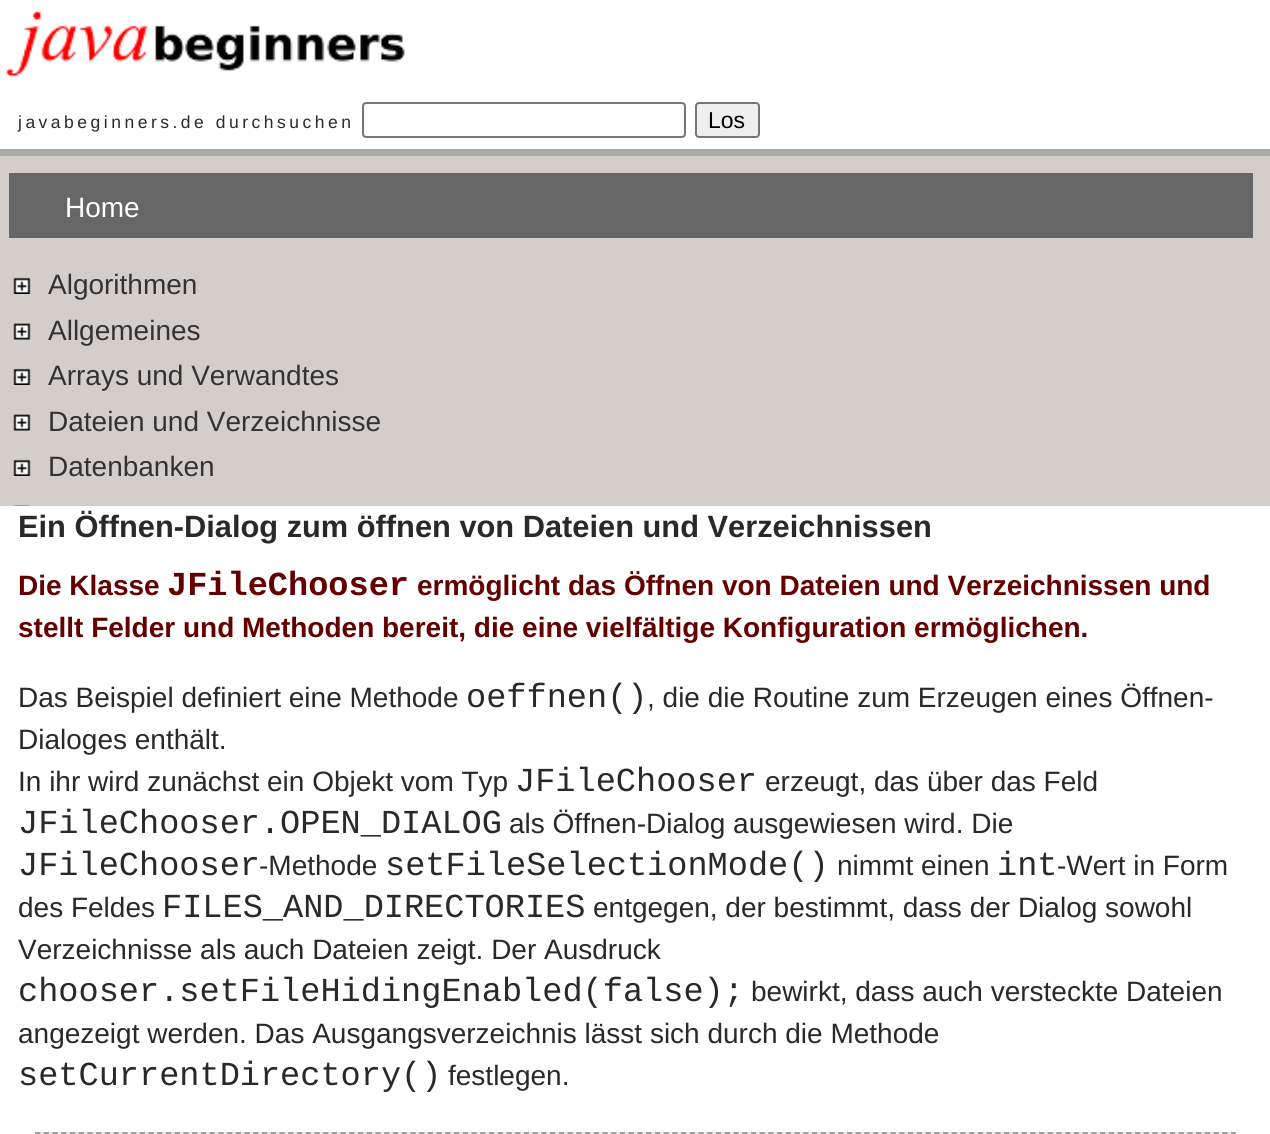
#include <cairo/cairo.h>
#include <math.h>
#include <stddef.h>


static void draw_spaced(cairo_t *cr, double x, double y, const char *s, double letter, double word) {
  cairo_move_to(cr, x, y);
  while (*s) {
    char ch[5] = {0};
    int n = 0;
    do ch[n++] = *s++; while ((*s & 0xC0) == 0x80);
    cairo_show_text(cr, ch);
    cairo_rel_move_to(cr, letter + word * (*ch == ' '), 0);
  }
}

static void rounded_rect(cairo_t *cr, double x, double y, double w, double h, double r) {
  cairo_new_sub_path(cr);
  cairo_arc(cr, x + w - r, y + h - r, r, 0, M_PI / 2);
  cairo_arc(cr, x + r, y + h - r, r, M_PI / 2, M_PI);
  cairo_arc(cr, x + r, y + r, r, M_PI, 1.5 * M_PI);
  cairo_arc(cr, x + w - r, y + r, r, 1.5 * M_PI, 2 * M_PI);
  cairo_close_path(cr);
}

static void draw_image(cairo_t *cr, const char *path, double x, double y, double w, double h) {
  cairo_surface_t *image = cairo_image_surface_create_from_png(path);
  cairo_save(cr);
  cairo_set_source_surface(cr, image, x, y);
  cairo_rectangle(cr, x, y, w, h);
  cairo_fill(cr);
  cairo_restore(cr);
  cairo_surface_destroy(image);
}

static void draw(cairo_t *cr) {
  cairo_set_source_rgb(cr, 211 / 255.0, 206 / 255.0, 202 / 255.0);
  cairo_paint(cr);
  cairo_set_source_rgb(cr, 1, 1, 1);
  cairo_rectangle(cr, 0, 0, 1270, 149);
  cairo_fill(cr);
  cairo_set_source_rgb(cr, 170 / 255.0, 170 / 255.0, 170 / 255.0);
  cairo_rectangle(cr, 0, 149, 1270, 7);
  cairo_fill(cr);
  draw_image(cr, "images/1.png", 6, 10, 399, 69);
  rounded_rect(cr, 363, 103, 322, 34, 3);
  cairo_set_source_rgb(cr, 118 / 255.0, 118 / 255.0, 118 / 255.0);
  cairo_stroke(cr);
  cairo_set_source_rgb(cr, 239 / 255.0, 239 / 255.0, 239 / 255.0);
  rounded_rect(cr, 696, 103, 63, 34, 3);
  cairo_fill_preserve(cr);
  cairo_set_source_rgb(cr, 118 / 255.0, 118 / 255.0, 118 / 255.0);
  cairo_stroke(cr);
  cairo_set_source_rgb(cr, 102 / 255.0, 102 / 255.0, 102 / 255.0);
  cairo_rectangle(cr, 9, 173, 1244, 65);
  cairo_fill(cr);
  draw_image(cr, "images/2.png", 13, 277, 18, 17);
  draw_image(cr, "images/3.png", 13, 323, 18, 17);
  draw_image(cr, "images/2.png", 13, 368, 18, 17);
  draw_image(cr, "images/3.png", 13, 414, 18, 17);
  draw_image(cr, "images/2.png", 13, 459, 18, 17);
  draw_image(cr, "images/4.png", 13, 505, 18, 1);
  cairo_set_source_rgb(cr, 1, 1, 1);
  cairo_rectangle(cr, 0, 506, 1270, 628);
  cairo_fill(cr);
  cairo_set_source_rgb(cr, 234 / 255.0, 230 / 255.0, 227 / 255.0);
  cairo_rectangle(cr, 35, 1132, 1201, 2);
  cairo_fill(cr);
  cairo_new_path(cr);
  cairo_move_to(cr, 35, 1133);
  cairo_line_to(cr, 1235.5, 1133);
  cairo_set_source_rgb(cr, 153 / 255.0, 153 / 255.0, 153 / 255.0);
  cairo_set_line_width(cr, 1.8);
  cairo_set_dash(cr, (double[]){5.25, 3.48}, 2, 0);
  cairo_stroke(cr);
  cairo_new_path(cr);
  cairo_move_to(cr, 1234.5, 1132);
  cairo_line_to(cr, 1234.5, 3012);
  cairo_set_dash(cr, (double[]){5.25, 3.5}, 2, 0);
  cairo_stroke(cr);
  cairo_new_path(cr);
  cairo_move_to(cr, 36, 1132);
  cairo_line_to(cr, 36, 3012);
  cairo_stroke(cr);
  cairo_select_font_face(cr, "Liberation Sans", CAIRO_FONT_SLANT_NORMAL, CAIRO_FONT_WEIGHT_NORMAL);
  cairo_set_font_size(cr, 17.5);
  cairo_set_source_rgb(cr, 41 / 255.0, 41 / 255.0, 41 / 255.0);
  draw_spaced(cr, 18, 128, "javabeginners.de durchsuchen", 3.5, 0);
  cairo_set_font_size(cr, 23);
  cairo_set_source_rgb(cr, 0, 0, 0);
  cairo_move_to(cr, 708, 128);
  cairo_show_text(cr, "Los");
  cairo_set_font_size(cr, 28);
  cairo_set_source_rgb(cr, 1, 1, 1);
  cairo_move_to(cr, 65, 217);
  cairo_show_text(cr, "Home");
  cairo_set_source_rgb(cr, 51 / 255.0, 51 / 255.0, 51 / 255.0);
  cairo_move_to(cr, 48, 294);
  cairo_show_text(cr, "Algorithmen");
  cairo_move_to(cr, 48, 340);
  cairo_show_text(cr, "Allgemeines");
  cairo_move_to(cr, 48, 385);
  cairo_show_text(cr, "Arrays und Verwandtes");
  cairo_move_to(cr, 48, 431);
  cairo_show_text(cr, "Dateien und Verzeichnisse");
  cairo_move_to(cr, 48, 476);
  cairo_show_text(cr, "Datenbanken");
  cairo_select_font_face(cr, "Liberation Sans", CAIRO_FONT_SLANT_NORMAL, CAIRO_FONT_WEIGHT_BOLD);
  cairo_set_font_size(cr, 30.8);
  cairo_set_source_rgb(cr, 41 / 255.0, 41 / 255.0, 41 / 255.0);
  cairo_move_to(cr, 18, 537);
  cairo_show_text(cr, "Ein Öffnen-Dialog zum öffnen von Dateien und Verzeichnissen");
  cairo_set_font_size(cr, 28);
  cairo_set_source_rgb(cr, 101 / 255.0, 0, 0);
  cairo_move_to(cr, 18, 595);
  cairo_show_text(cr, "Die Klasse");
  cairo_select_font_face(cr, "Liberation Mono", CAIRO_FONT_SLANT_NORMAL, CAIRO_FONT_WEIGHT_BOLD);
  cairo_set_font_size(cr, 33.6);
  cairo_move_to(cr, 167, 595);
  cairo_show_text(cr, "JFileChooser");
  cairo_select_font_face(cr, "Liberation Sans", CAIRO_FONT_SLANT_NORMAL, CAIRO_FONT_WEIGHT_BOLD);
  cairo_set_font_size(cr, 28);
  cairo_move_to(cr, 417, 595);
  cairo_show_text(cr, "ermöglicht das Öffnen von Dateien und Verzeichnissen und");
  cairo_move_to(cr, 18, 637);
  cairo_show_text(cr, "stellt Felder und Methoden bereit, die eine vielfältige Konfiguration ermöglichen.");
  cairo_select_font_face(cr, "Liberation Sans", CAIRO_FONT_SLANT_NORMAL, CAIRO_FONT_WEIGHT_NORMAL);
  cairo_set_source_rgb(cr, 41 / 255.0, 41 / 255.0, 41 / 255.0);
  cairo_move_to(cr, 18, 707);
  cairo_show_text(cr, "Das Beispiel definiert eine Methode");
  cairo_select_font_face(cr, "Liberation Mono", CAIRO_FONT_SLANT_NORMAL, CAIRO_FONT_WEIGHT_NORMAL);
  cairo_set_font_size(cr, 33.6);
  cairo_move_to(cr, 466, 707);
  cairo_show_text(cr, "oeffnen()");
  cairo_select_font_face(cr, "Liberation Sans", CAIRO_FONT_SLANT_NORMAL, CAIRO_FONT_WEIGHT_NORMAL);
  cairo_set_font_size(cr, 28);
  cairo_move_to(cr, 647, 707);
  cairo_show_text(cr, ", die die Routine zum Erzeugen eines Öffnen-");
  cairo_move_to(cr, 18, 749);
  cairo_show_text(cr, "Dialoges enthält.");
  cairo_move_to(cr, 18, 791);
  cairo_show_text(cr, "In ihr wird zunächst ein Objekt vom Typ");
  cairo_select_font_face(cr, "Liberation Mono", CAIRO_FONT_SLANT_NORMAL, CAIRO_FONT_WEIGHT_NORMAL);
  cairo_set_font_size(cr, 33.6);
  cairo_move_to(cr, 515, 791);
  cairo_show_text(cr, "JFileChooser");
  cairo_select_font_face(cr, "Liberation Sans", CAIRO_FONT_SLANT_NORMAL, CAIRO_FONT_WEIGHT_NORMAL);
  cairo_set_font_size(cr, 28);
  cairo_move_to(cr, 765, 791);
  cairo_show_text(cr, "erzeugt, das über das Feld");
  cairo_select_font_face(cr, "Liberation Mono", CAIRO_FONT_SLANT_NORMAL, CAIRO_FONT_WEIGHT_NORMAL);
  cairo_set_font_size(cr, 33.6);
  cairo_move_to(cr, 18, 833);
  cairo_show_text(cr, "JFileChooser.OPEN_DIALOG");
  cairo_select_font_face(cr, "Liberation Sans", CAIRO_FONT_SLANT_NORMAL, CAIRO_FONT_WEIGHT_NORMAL);
  cairo_set_font_size(cr, 28);
  cairo_move_to(cr, 509, 833);
  cairo_show_text(cr, "als Öffnen-Dialog ausgewiesen wird. Die");
  cairo_select_font_face(cr, "Liberation Mono", CAIRO_FONT_SLANT_NORMAL, CAIRO_FONT_WEIGHT_NORMAL);
  cairo_set_font_size(cr, 33.6);
  cairo_move_to(cr, 18, 875);
  cairo_show_text(cr, "JFileChooser");
  cairo_select_font_face(cr, "Liberation Sans", CAIRO_FONT_SLANT_NORMAL, CAIRO_FONT_WEIGHT_NORMAL);
  cairo_set_font_size(cr, 28);
  cairo_move_to(cr, 259, 875);
  cairo_show_text(cr, "-Methode");
  cairo_select_font_face(cr, "Liberation Mono", CAIRO_FONT_SLANT_NORMAL, CAIRO_FONT_WEIGHT_NORMAL);
  cairo_set_font_size(cr, 33.6);
  cairo_move_to(cr, 385, 875);
  cairo_show_text(cr, "setFileSelectionMode()");
  cairo_select_font_face(cr, "Liberation Sans", CAIRO_FONT_SLANT_NORMAL, CAIRO_FONT_WEIGHT_NORMAL);
  cairo_set_font_size(cr, 28);
  cairo_move_to(cr, 837, 875);
  cairo_show_text(cr, "nimmt einen");
  cairo_select_font_face(cr, "Liberation Mono", CAIRO_FONT_SLANT_NORMAL, CAIRO_FONT_WEIGHT_NORMAL);
  cairo_set_font_size(cr, 33.6);
  cairo_move_to(cr, 997, 875);
  cairo_show_text(cr, "int");
  cairo_select_font_face(cr, "Liberation Sans", CAIRO_FONT_SLANT_NORMAL, CAIRO_FONT_WEIGHT_NORMAL);
  cairo_set_font_size(cr, 28);
  cairo_move_to(cr, 1057, 875);
  cairo_show_text(cr, "-Wert in Form");
  cairo_move_to(cr, 18, 917);
  cairo_show_text(cr, "des Feldes");
  cairo_select_font_face(cr, "Liberation Mono", CAIRO_FONT_SLANT_NORMAL, CAIRO_FONT_WEIGHT_NORMAL);
  cairo_set_font_size(cr, 33.6);
  cairo_move_to(cr, 162, 917);
  cairo_show_text(cr, "FILES_AND_DIRECTORIES");
  cairo_select_font_face(cr, "Liberation Sans", CAIRO_FONT_SLANT_NORMAL, CAIRO_FONT_WEIGHT_NORMAL);
  cairo_set_font_size(cr, 28);
  cairo_move_to(cr, 593, 917);
  cairo_show_text(cr, "entgegen, der bestimmt, dass der Dialog sowohl");
  cairo_move_to(cr, 18, 959);
  cairo_show_text(cr, "Verzeichnisse als auch Dateien zeigt. Der Ausdruck");
  cairo_select_font_face(cr, "Liberation Mono", CAIRO_FONT_SLANT_NORMAL, CAIRO_FONT_WEIGHT_NORMAL);
  cairo_set_font_size(cr, 33.6);
  cairo_move_to(cr, 18, 1001);
  cairo_show_text(cr, "chooser.setFileHidingEnabled(false);");
  cairo_select_font_face(cr, "Liberation Sans", CAIRO_FONT_SLANT_NORMAL, CAIRO_FONT_WEIGHT_NORMAL);
  cairo_set_font_size(cr, 28);
  cairo_move_to(cr, 751, 1001);
  cairo_show_text(cr, "bewirkt, dass auch versteckte Dateien");
  cairo_move_to(cr, 18, 1043);
  cairo_show_text(cr, "angezeigt werden. Das Ausgangsverzeichnis lässt sich durch die Methode");
  cairo_select_font_face(cr, "Liberation Mono", CAIRO_FONT_SLANT_NORMAL, CAIRO_FONT_WEIGHT_NORMAL);
  cairo_set_font_size(cr, 33.6);
  cairo_move_to(cr, 18, 1085);
  cairo_show_text(cr, "setCurrentDirectory()");
  cairo_select_font_face(cr, "Liberation Sans", CAIRO_FONT_SLANT_NORMAL, CAIRO_FONT_WEIGHT_NORMAL);
  cairo_set_font_size(cr, 28);
  cairo_move_to(cr, 448, 1085);
  cairo_show_text(cr, "festlegen.");
}

int main(void) {
  cairo_surface_t *surface = cairo_image_surface_create(CAIRO_FORMAT_RGB24, 1270, 1134);
  cairo_t *cr = cairo_create(surface);
  cairo_font_options_t *options = cairo_font_options_create();
  cairo_font_options_set_hint_metrics(options, CAIRO_HINT_METRICS_OFF);
  cairo_font_options_set_hint_style(options, CAIRO_HINT_STYLE_NONE);
  cairo_set_font_options(cr, options);
  cairo_set_miter_limit(cr, 4);
  draw(cr);
  cairo_surface_write_to_png(surface, "out.png");
  cairo_font_options_destroy(options);
  cairo_destroy(cr);
  cairo_surface_destroy(surface);
  return 0;
}
